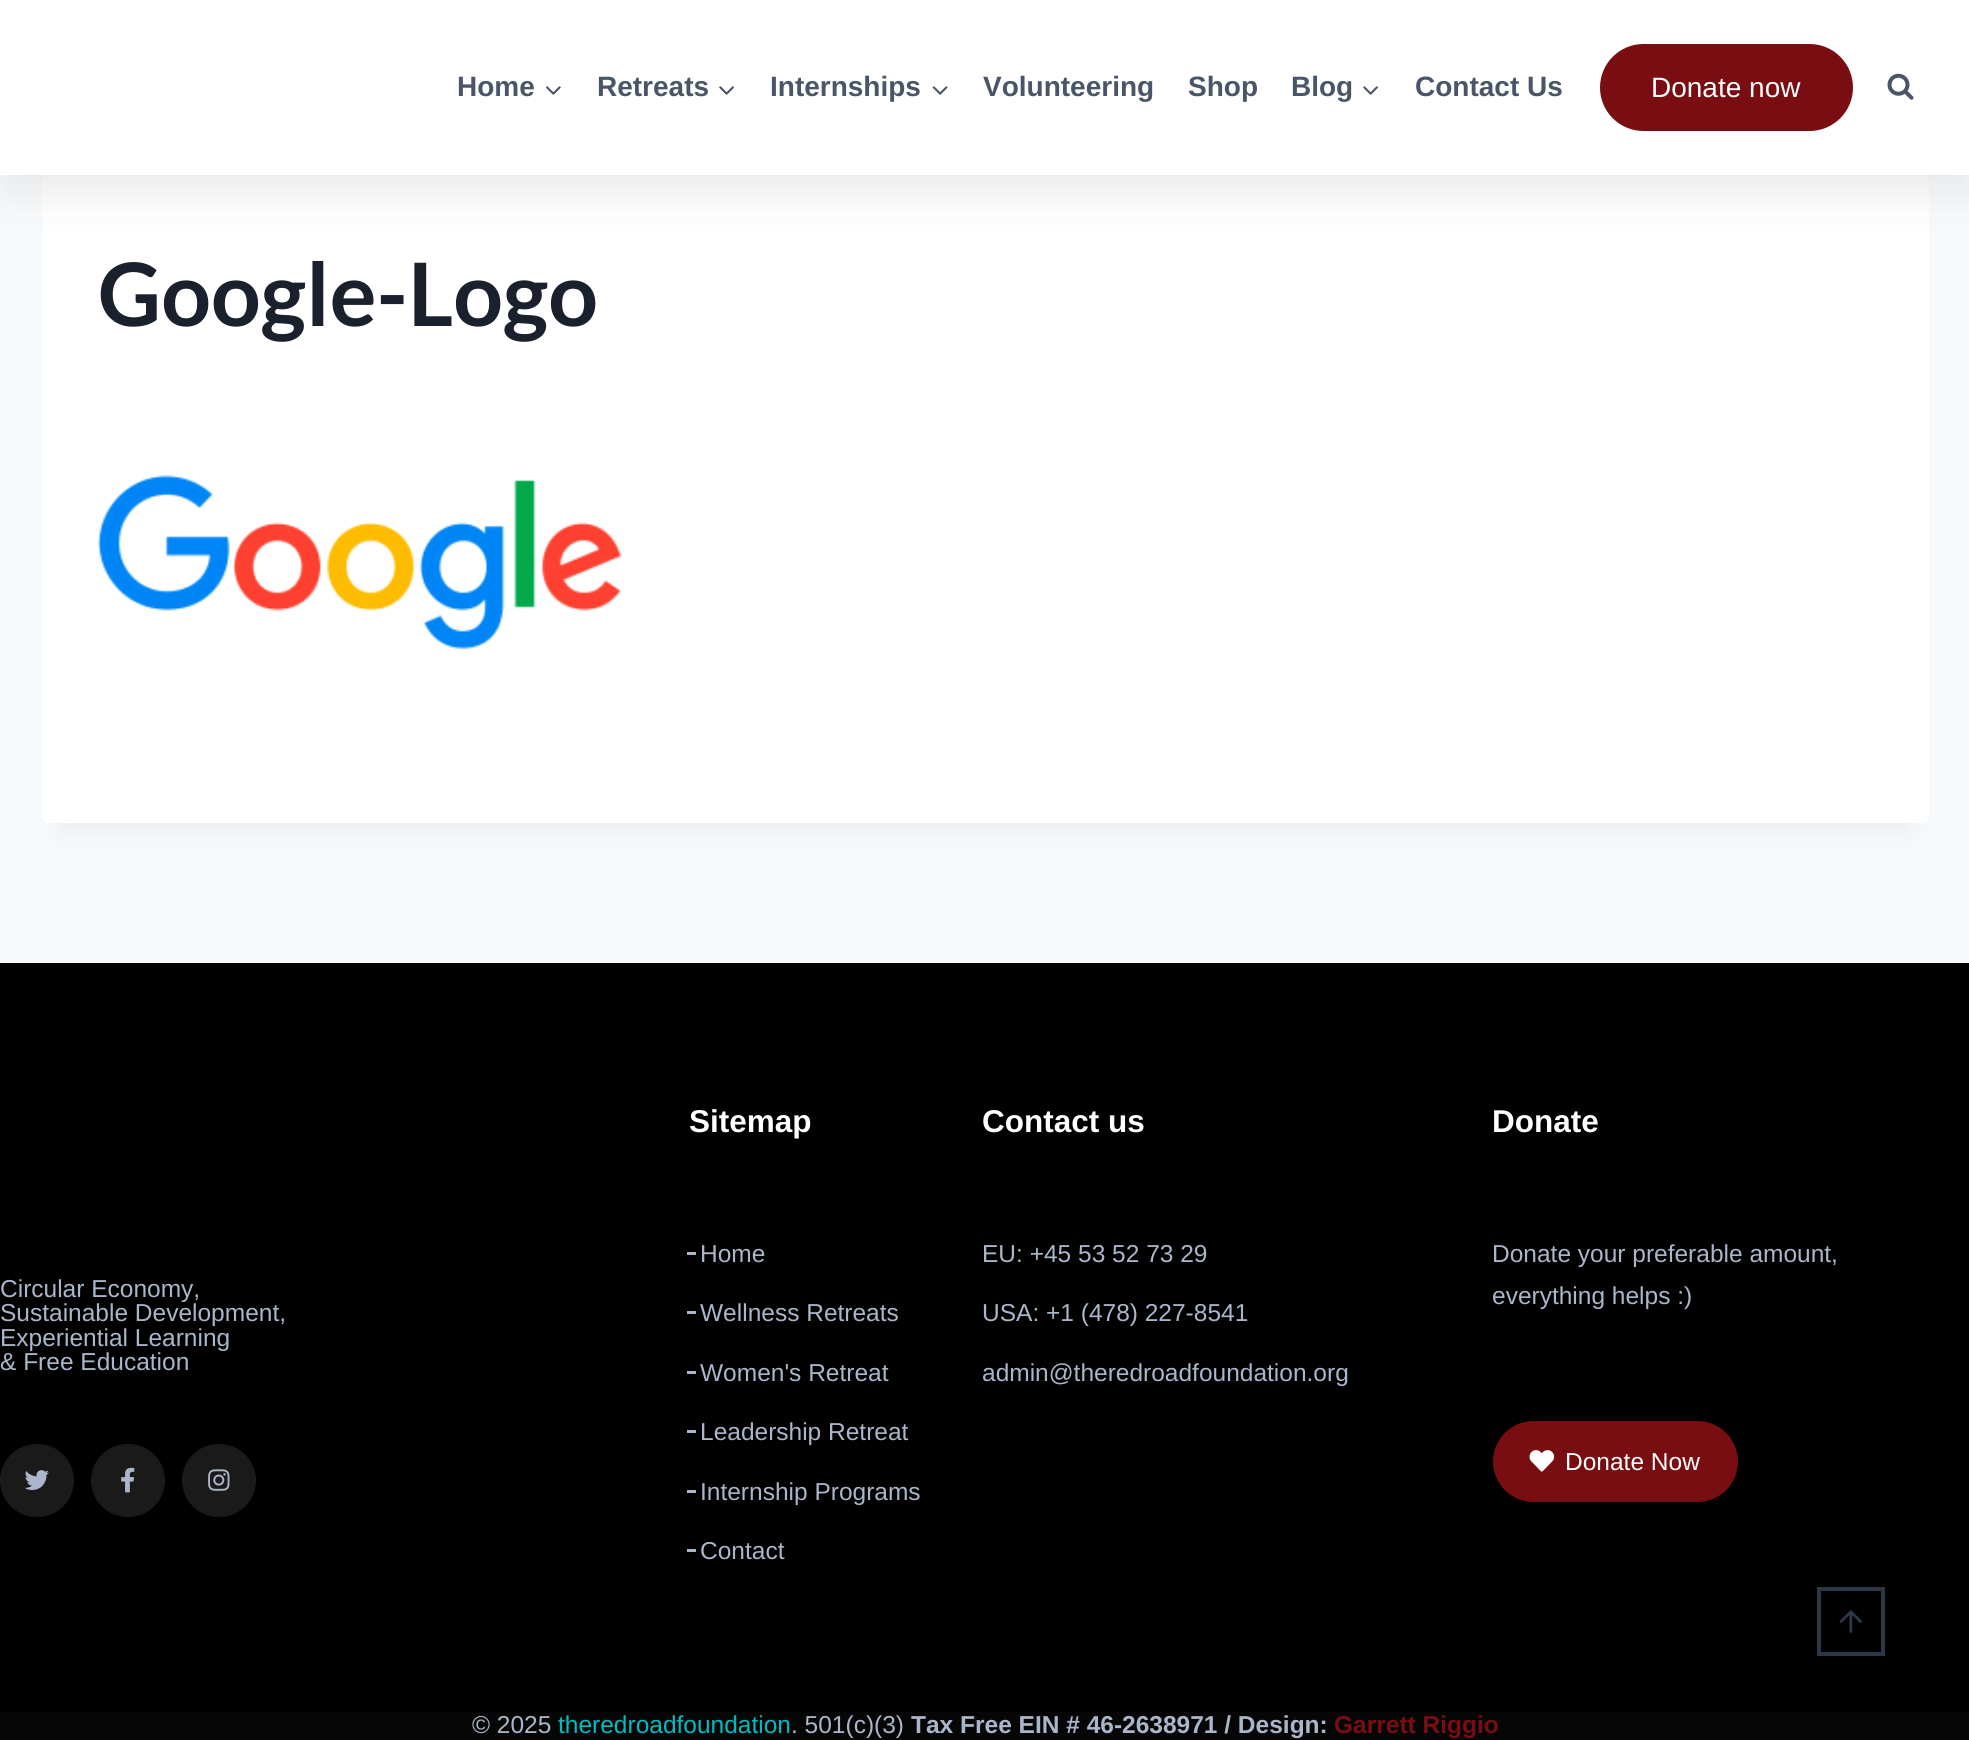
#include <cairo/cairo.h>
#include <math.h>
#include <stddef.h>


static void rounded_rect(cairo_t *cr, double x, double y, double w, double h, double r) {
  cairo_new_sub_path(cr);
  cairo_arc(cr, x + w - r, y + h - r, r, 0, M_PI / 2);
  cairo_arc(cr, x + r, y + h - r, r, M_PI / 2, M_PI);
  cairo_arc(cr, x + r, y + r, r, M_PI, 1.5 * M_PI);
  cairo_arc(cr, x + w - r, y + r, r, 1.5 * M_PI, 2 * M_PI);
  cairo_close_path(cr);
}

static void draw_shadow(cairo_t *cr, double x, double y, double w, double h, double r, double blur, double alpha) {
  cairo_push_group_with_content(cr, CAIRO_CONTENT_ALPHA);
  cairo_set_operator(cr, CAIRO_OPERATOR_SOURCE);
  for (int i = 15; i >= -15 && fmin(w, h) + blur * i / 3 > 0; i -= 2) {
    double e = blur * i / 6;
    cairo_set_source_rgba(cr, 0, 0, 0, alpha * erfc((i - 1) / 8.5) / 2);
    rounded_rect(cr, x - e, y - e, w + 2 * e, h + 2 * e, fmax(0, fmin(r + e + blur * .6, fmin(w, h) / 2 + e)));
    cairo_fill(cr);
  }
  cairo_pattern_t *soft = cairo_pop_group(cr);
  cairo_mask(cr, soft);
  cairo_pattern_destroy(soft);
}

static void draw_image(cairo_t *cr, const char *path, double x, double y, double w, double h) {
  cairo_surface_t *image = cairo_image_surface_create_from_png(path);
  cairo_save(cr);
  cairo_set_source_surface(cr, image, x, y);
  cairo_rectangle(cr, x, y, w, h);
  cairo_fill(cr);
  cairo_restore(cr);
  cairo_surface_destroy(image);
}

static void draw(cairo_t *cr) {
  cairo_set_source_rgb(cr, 247 / 255.0, 250 / 255.0, 252 / 255.0);
  cairo_paint(cr);
  cairo_set_source_rgb(cr, 0, 0, 0);
  draw_shadow(cr, 60, 215, 1851, 616, 0, 13, 0.05);
  cairo_set_source_rgb(cr, 1, 1, 1);
  rounded_rect(cr, 42, 172, 1887, 651, 7);
  cairo_fill(cr);
  cairo_set_source_rgb(cr, 214 / 255.0, 214 / 255.0, 214 / 255.0);
  draw_shadow(cr, 4, 18, 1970, 175, 0, 21, 0.52);
  cairo_set_source_rgb(cr, 1, 1, 1);
  cairo_rectangle(cr, 0, 0, 1969, 175);
  cairo_fill(cr);
  draw_image(cr, "images/1.png", 546, 86, 15, 9);
  draw_image(cr, "images/2.png", 719, 86, 15, 9);
  draw_image(cr, "images/3.png", 932, 86, 16, 9);
  draw_image(cr, "images/2.png", 1363, 86, 15, 9);
  cairo_set_source_rgb(cr, 121 / 255.0, 13 / 255.0, 18 / 255.0);
  rounded_rect(cr, 1599, 43, 255, 89, 44.5);
  cairo_fill_preserve(cr);
  cairo_set_source_rgb(cr, 1, 1, 1);
  cairo_stroke(cr);
  draw_image(cr, "images/4.png", 1887, 73, 27, 27);
  draw_image(cr, "images/5.png", 98, 475, 524, 175);
  cairo_set_source_rgb(cr, 0, 0, 0);
  cairo_rectangle(cr, 0, 963, 1969, 749);
  cairo_fill(cr);
  cairo_set_source_rgb(cr, 26 / 255.0, 26 / 255.0, 26 / 255.0);
  rounded_rect(cr, 0, 1444, 74, 73, 36.5);
  cairo_fill(cr);
  draw_image(cr, "images/6.png", 24, 1470, 25, 20);
  rounded_rect(cr, 91, 1444, 74, 73, 36.5);
  cairo_fill(cr);
  draw_image(cr, "images/7.png", 121, 1467, 14, 26);
  rounded_rect(cr, 182, 1444, 74, 73, 36.5);
  cairo_fill(cr);
  draw_image(cr, "images/8.png", 208, 1469, 22, 22);
  cairo_set_source_rgb(cr, 170 / 255.0, 182 / 255.0, 201 / 255.0);
  cairo_rectangle(cr, 687, 1252, 9, 3);
  cairo_fill(cr);
  cairo_rectangle(cr, 687, 1311, 9, 3);
  cairo_fill(cr);
  cairo_rectangle(cr, 687, 1371, 9, 3);
  cairo_fill(cr);
  cairo_rectangle(cr, 687, 1430, 9, 3);
  cairo_fill(cr);
  cairo_rectangle(cr, 687, 1490, 9, 3);
  cairo_fill(cr);
  cairo_rectangle(cr, 687, 1549, 9, 3);
  cairo_fill(cr);
  cairo_set_source_rgb(cr, 120 / 255.0, 14 / 255.0, 18 / 255.0);
  rounded_rect(cr, 1494, 1422, 243, 79, 39.5);
  cairo_fill_preserve(cr);
  cairo_stroke(cr);
  draw_image(cr, "images/9.png", 1529, 1450, 26, 22);
  cairo_set_source_rgb(cr, 6 / 255.0, 6 / 255.0, 6 / 255.0);
  cairo_rectangle(cr, 0, 1712, 1969, 28);
  cairo_fill(cr);
  cairo_rectangle(cr, 1819, 1589, 64, 65);
  cairo_set_source_rgb(cr, 45 / 255.0, 55 / 255.0, 72 / 255.0);
  cairo_set_line_width(cr, 4);
  cairo_stroke(cr);
  draw_image(cr, "images/10.png", 1839, 1610, 23, 23);
  cairo_select_font_face(cr, "Liberation Sans", CAIRO_FONT_SLANT_NORMAL, CAIRO_FONT_WEIGHT_BOLD);
  cairo_set_font_size(cr, 28);
  cairo_set_source_rgb(cr, 74 / 255.0, 85 / 255.0, 104 / 255.0);
  cairo_move_to(cr, 457, 96);
  cairo_show_text(cr, "Home");
  cairo_move_to(cr, 597, 96);
  cairo_show_text(cr, "Retreats");
  cairo_move_to(cr, 770, 96);
  cairo_show_text(cr, "Internships");
  cairo_move_to(cr, 983, 96);
  cairo_show_text(cr, "Volunteering");
  cairo_move_to(cr, 1188, 96);
  cairo_show_text(cr, "Shop");
  cairo_move_to(cr, 1291, 96);
  cairo_show_text(cr, "Blog");
  cairo_move_to(cr, 1415, 96);
  cairo_show_text(cr, "Contact Us");
  cairo_select_font_face(cr, "Liberation Sans", CAIRO_FONT_SLANT_NORMAL, CAIRO_FONT_WEIGHT_NORMAL);
  cairo_set_source_rgb(cr, 1, 1, 1);
  cairo_move_to(cr, 1651, 97);
  cairo_show_text(cr, "Donate now");
  cairo_select_font_face(cr, "Lato", CAIRO_FONT_SLANT_NORMAL, CAIRO_FONT_WEIGHT_BOLD);
  cairo_set_font_size(cr, 87.5);
  cairo_set_source_rgb(cr, 26 / 255.0, 32 / 255.0, 44 / 255.0);
  cairo_move_to(cr, 98, 326);
  cairo_show_text(cr, "Google-Logo");
  cairo_select_font_face(cr, "Liberation Sans", CAIRO_FONT_SLANT_NORMAL, CAIRO_FONT_WEIGHT_NORMAL);
  cairo_set_font_size(cr, 24.5);
  cairo_set_source_rgb(cr, 170 / 255.0, 182 / 255.0, 201 / 255.0);
  cairo_move_to(cr, 0, 1297);
  cairo_show_text(cr, "Circular Economy,");
  cairo_move_to(cr, 0, 1321);
  cairo_show_text(cr, "Sustainable Development,");
  cairo_move_to(cr, 0, 1346);
  cairo_show_text(cr, "Experiential Learning");
  cairo_move_to(cr, 0, 1370);
  cairo_show_text(cr, "& Free Education");
  cairo_select_font_face(cr, "Liberation Sans", CAIRO_FONT_SLANT_NORMAL, CAIRO_FONT_WEIGHT_BOLD);
  cairo_set_font_size(cr, 31.5);
  cairo_set_source_rgb(cr, 1, 1, 1);
  cairo_move_to(cr, 689, 1132);
  cairo_show_text(cr, "Sitemap");
  cairo_select_font_face(cr, "Liberation Sans", CAIRO_FONT_SLANT_NORMAL, CAIRO_FONT_WEIGHT_NORMAL);
  cairo_set_font_size(cr, 24.5);
  cairo_set_source_rgb(cr, 170 / 255.0, 182 / 255.0, 201 / 255.0);
  cairo_move_to(cr, 700, 1262);
  cairo_show_text(cr, "Home");
  cairo_move_to(cr, 700, 1321);
  cairo_show_text(cr, "Wellness Retreats");
  cairo_move_to(cr, 700, 1381);
  cairo_show_text(cr, "Women's Retreat");
  cairo_move_to(cr, 700, 1440);
  cairo_show_text(cr, "Leadership Retreat");
  cairo_move_to(cr, 700, 1500);
  cairo_show_text(cr, "Internship Programs");
  cairo_move_to(cr, 700, 1559);
  cairo_show_text(cr, "Contact");
  cairo_select_font_face(cr, "Liberation Sans", CAIRO_FONT_SLANT_NORMAL, CAIRO_FONT_WEIGHT_BOLD);
  cairo_set_font_size(cr, 31.5);
  cairo_set_source_rgb(cr, 1, 1, 1);
  cairo_move_to(cr, 982, 1132);
  cairo_show_text(cr, "Contact us");
  cairo_select_font_face(cr, "Liberation Sans", CAIRO_FONT_SLANT_NORMAL, CAIRO_FONT_WEIGHT_NORMAL);
  cairo_set_font_size(cr, 24.5);
  cairo_set_source_rgb(cr, 170 / 255.0, 182 / 255.0, 201 / 255.0);
  cairo_move_to(cr, 982, 1262);
  cairo_show_text(cr, "EU: +45 53 52 73 29");
  cairo_move_to(cr, 982, 1321);
  cairo_show_text(cr, "USA: +1 (478) 227-8541");
  cairo_move_to(cr, 982, 1381);
  cairo_show_text(cr, "admin@theredroadfoundation.org");
  cairo_select_font_face(cr, "Liberation Sans", CAIRO_FONT_SLANT_NORMAL, CAIRO_FONT_WEIGHT_BOLD);
  cairo_set_font_size(cr, 31.5);
  cairo_set_source_rgb(cr, 1, 1, 1);
  cairo_move_to(cr, 1492, 1132);
  cairo_show_text(cr, "Donate");
  cairo_select_font_face(cr, "Liberation Sans", CAIRO_FONT_SLANT_NORMAL, CAIRO_FONT_WEIGHT_NORMAL);
  cairo_set_font_size(cr, 24.5);
  cairo_set_source_rgb(cr, 170 / 255.0, 182 / 255.0, 201 / 255.0);
  cairo_move_to(cr, 1492, 1262);
  cairo_show_text(cr, "Donate your preferable amount,");
  cairo_move_to(cr, 1492, 1304);
  cairo_show_text(cr, "everything helps :)");
  cairo_set_source_rgb(cr, 1, 1, 1);
  cairo_move_to(cr, 1565, 1470);
  cairo_show_text(cr, "Donate Now");
  cairo_set_source_rgb(cr, 170 / 255.0, 182 / 255.0, 201 / 255.0);
  cairo_move_to(cr, 472, 1733);
  cairo_show_text(cr, "© 2025");
  cairo_set_source_rgb(cr, 0, 188 / 255.0, 193 / 255.0);
  cairo_move_to(cr, 558, 1733);
  cairo_show_text(cr, "theredroadfoundation");
  cairo_set_source_rgb(cr, 170 / 255.0, 182 / 255.0, 201 / 255.0);
  cairo_move_to(cr, 791, 1733);
  cairo_show_text(cr, ". 501(c)(3)");
  cairo_select_font_face(cr, "Liberation Sans", CAIRO_FONT_SLANT_NORMAL, CAIRO_FONT_WEIGHT_BOLD);
  cairo_move_to(cr, 911, 1733);
  cairo_show_text(cr, "Tax Free EIN # 46-2638971 / Design:");
  cairo_set_source_rgb(cr, 120 / 255.0, 14 / 255.0, 18 / 255.0);
  cairo_move_to(cr, 1334, 1733);
  cairo_show_text(cr, "Garrett Riggio");
}

int main(void) {
  cairo_surface_t *surface = cairo_image_surface_create(CAIRO_FORMAT_RGB24, 1969, 1740);
  cairo_t *cr = cairo_create(surface);
  cairo_font_options_t *options = cairo_font_options_create();
  cairo_font_options_set_hint_metrics(options, CAIRO_HINT_METRICS_OFF);
  cairo_font_options_set_hint_style(options, CAIRO_HINT_STYLE_NONE);
  cairo_set_font_options(cr, options);
  cairo_set_miter_limit(cr, 4);
  draw(cr);
  cairo_surface_write_to_png(surface, "out.png");
  cairo_font_options_destroy(options);
  cairo_destroy(cr);
  cairo_surface_destroy(surface);
  return 0;
}
